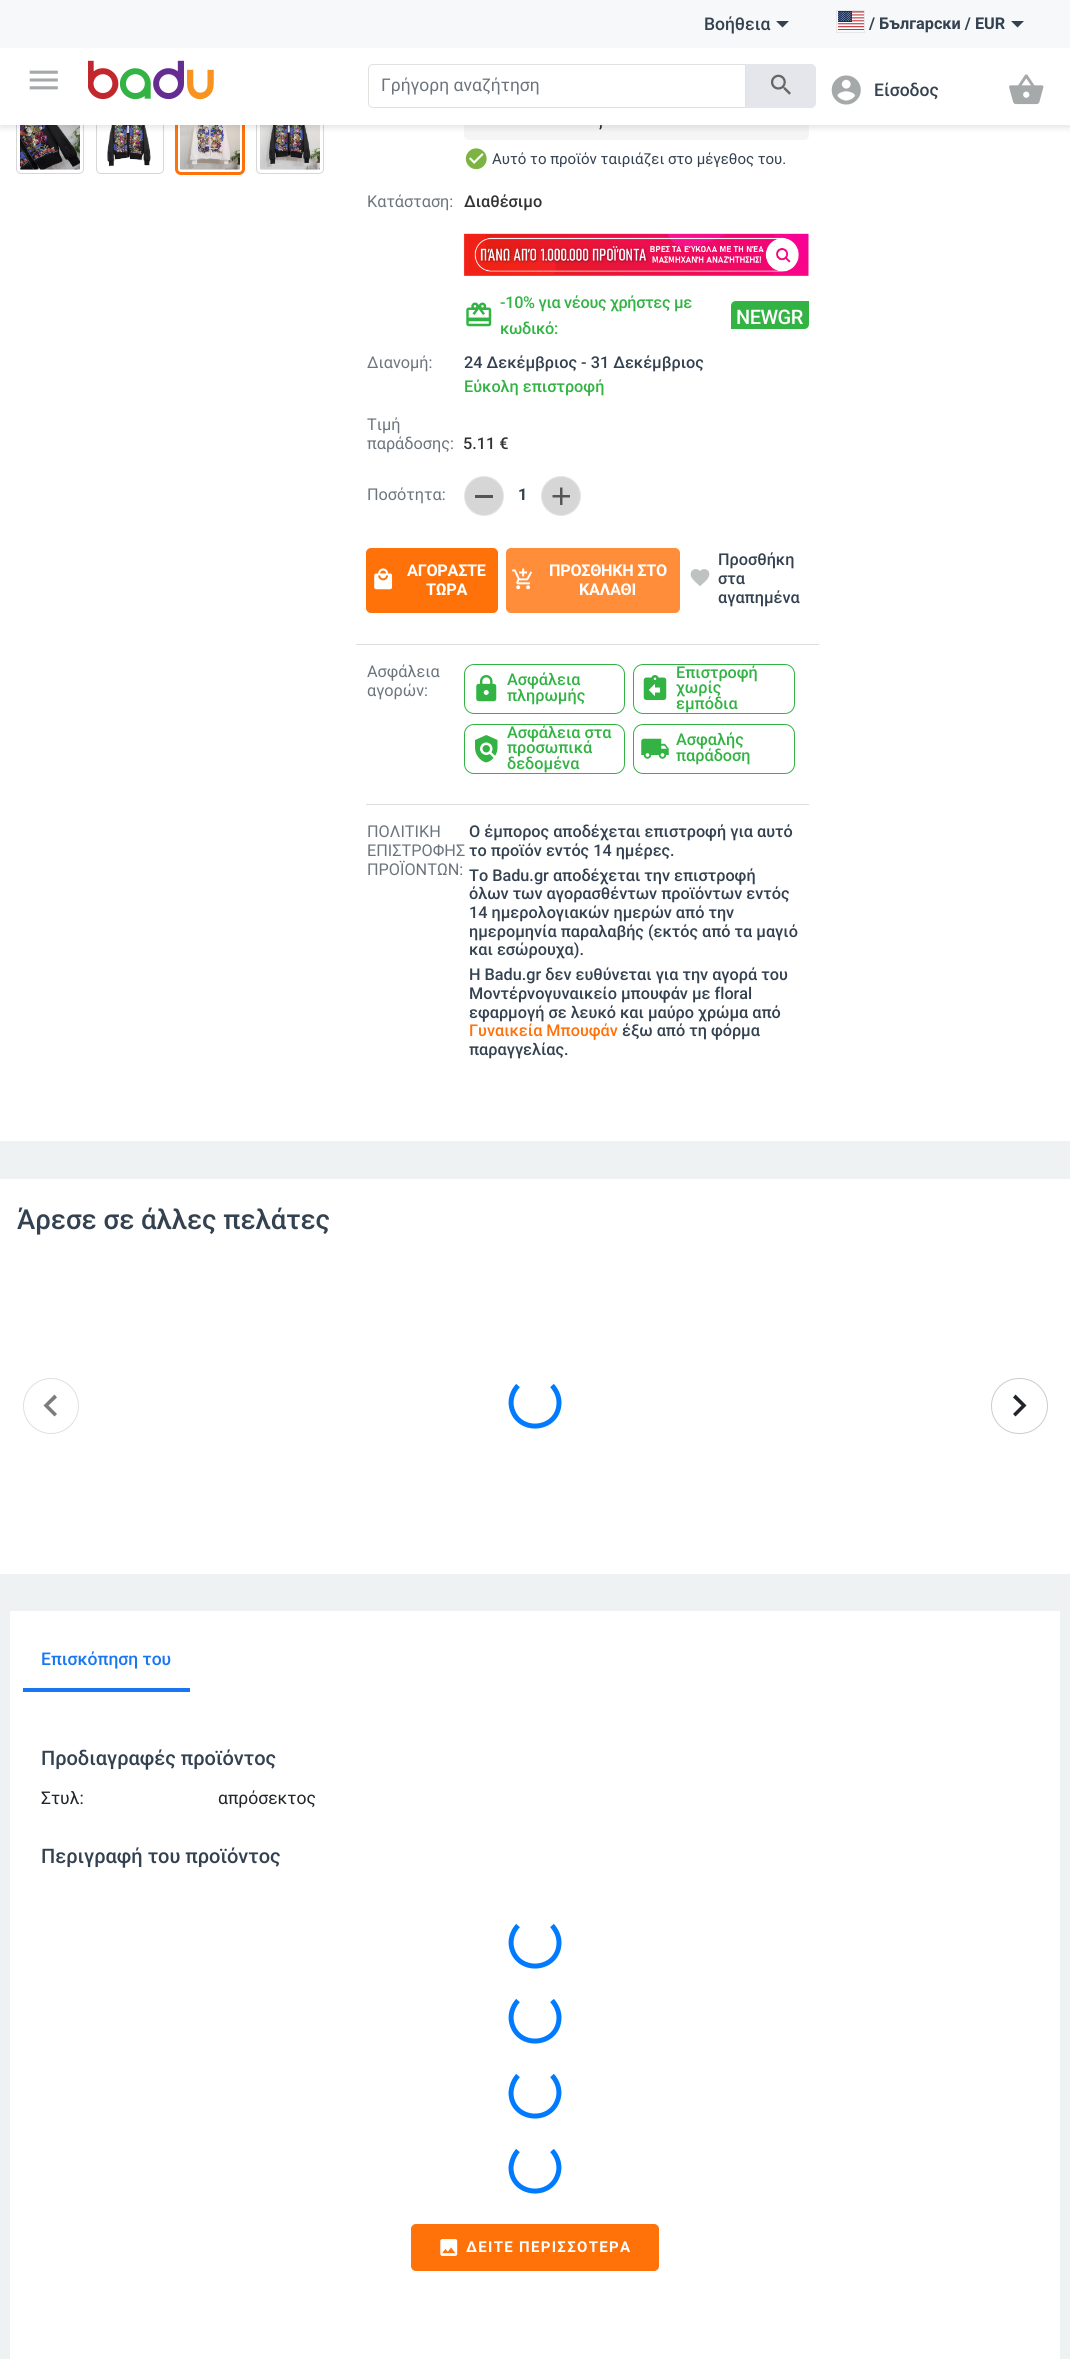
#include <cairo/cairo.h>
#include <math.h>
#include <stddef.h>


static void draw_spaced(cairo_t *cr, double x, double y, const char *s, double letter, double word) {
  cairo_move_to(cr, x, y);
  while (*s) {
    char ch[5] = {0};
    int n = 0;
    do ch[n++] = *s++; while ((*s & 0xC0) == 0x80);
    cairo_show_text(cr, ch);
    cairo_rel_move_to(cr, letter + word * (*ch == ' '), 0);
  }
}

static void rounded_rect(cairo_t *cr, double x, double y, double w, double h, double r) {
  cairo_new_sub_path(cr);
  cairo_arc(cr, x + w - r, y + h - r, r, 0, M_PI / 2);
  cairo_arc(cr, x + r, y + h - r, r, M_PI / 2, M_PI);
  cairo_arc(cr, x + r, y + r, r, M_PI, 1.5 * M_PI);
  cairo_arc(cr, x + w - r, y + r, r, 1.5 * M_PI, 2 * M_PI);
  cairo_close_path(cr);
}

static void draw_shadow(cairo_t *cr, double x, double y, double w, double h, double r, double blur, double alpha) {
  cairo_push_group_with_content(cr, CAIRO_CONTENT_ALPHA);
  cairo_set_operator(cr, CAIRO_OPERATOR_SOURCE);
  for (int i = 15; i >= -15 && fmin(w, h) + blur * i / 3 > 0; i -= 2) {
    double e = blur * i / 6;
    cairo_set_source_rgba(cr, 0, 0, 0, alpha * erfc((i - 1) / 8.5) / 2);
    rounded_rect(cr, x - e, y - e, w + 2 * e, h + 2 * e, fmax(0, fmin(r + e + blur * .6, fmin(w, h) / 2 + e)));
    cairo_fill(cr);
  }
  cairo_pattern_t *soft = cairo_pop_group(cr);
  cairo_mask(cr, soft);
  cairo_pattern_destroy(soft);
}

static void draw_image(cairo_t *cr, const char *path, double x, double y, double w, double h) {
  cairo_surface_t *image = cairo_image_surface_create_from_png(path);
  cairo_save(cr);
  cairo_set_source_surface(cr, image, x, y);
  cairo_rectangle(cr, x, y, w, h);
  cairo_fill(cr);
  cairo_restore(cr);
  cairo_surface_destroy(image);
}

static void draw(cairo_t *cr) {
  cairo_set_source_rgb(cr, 238 / 255.0, 242 / 255.0, 243 / 255.0);
  cairo_paint(cr);
  cairo_set_source_rgb(cr, 1, 1, 1);
  cairo_rectangle(cr, 0, 125, 1070, 1016);
  cairo_fill(cr);
  rounded_rect(cr, 16.5, 106.5, 67, 67, 4.5);
  cairo_set_source_rgb(cr, 215 / 255.0, 215 / 255.0, 215 / 255.0);
  cairo_set_line_width(cr, 1);
  cairo_stroke(cr);
  draw_image(cr, "images/7.png", 20, 125, 60, 45);
  rounded_rect(cr, 96.5, 106.5, 67, 67, 4.5);
  cairo_stroke(cr);
  draw_image(cr, "images/8.png", 107, 125, 44, 42);
  rounded_rect(cr, 176.5, 106.5, 67, 67, 4.5);
  cairo_set_source_rgb(cr, 1, 113 / 255.0, 9 / 255.0);
  cairo_set_line_width(cr, 3);
  cairo_stroke(cr);
  draw_image(cr, "images/9.png", 180, 125, 60, 45);
  rounded_rect(cr, 256.5, 106.5, 67, 67, 4.5);
  cairo_set_source_rgb(cr, 215 / 255.0, 215 / 255.0, 215 / 255.0);
  cairo_set_line_width(cr, 1);
  cairo_stroke(cr);
  draw_image(cr, "images/10.png", 260, 125, 60, 45);
  cairo_set_source_rgb(cr, 245 / 255.0, 245 / 255.0, 245 / 255.0);
  rounded_rect(cr, 464, 50, 345, 90, 5);
  cairo_fill(cr);
  cairo_set_source_rgb(cr, 0, 0, 0);
  draw_shadow(cr, 0, 3, 1070, 125, 0, 3, 0.1);
  cairo_set_source_rgb(cr, 1, 1, 1);
  cairo_rectangle(cr, 0, 48, 1070, 77);
  cairo_fill(cr);
  draw_image(cr, "images/1.png", 29, 70, 29, 20);
  draw_image(cr, "images/2.png", 88, 60, 126, 40);
  cairo_set_source_rgb(cr, 247 / 255.0, 248 / 255.0, 249 / 255.0);
  cairo_rectangle(cr, 0, 0, 1070, 48);
  cairo_fill(cr);
  cairo_set_source_rgb(cr, 51 / 255.0, 65 / 255.0, 80 / 255.0);
  cairo_new_path(cr);
  cairo_move_to(cr, 776, 21);
  cairo_line_to(cr, 789, 21);
  cairo_line_to(cr, 782.5, 27.5);
  cairo_close_path(cr);
  cairo_fill(cr);
  draw_image(cr, "images/3.png", 838, 11, 26, 19);
  cairo_rectangle(cr, 836.5, 10.5, 28, 22);
  cairo_set_source_rgb(cr, 231 / 255.0, 231 / 255.0, 231 / 255.0);
  cairo_stroke(cr);
  cairo_set_source_rgb(cr, 51 / 255.0, 65 / 255.0, 80 / 255.0);
  cairo_new_path(cr);
  cairo_move_to(cr, 1011, 21);
  cairo_line_to(cr, 1024, 21);
  cairo_line_to(cr, 1017.5, 27.5);
  cairo_close_path(cr);
  cairo_fill(cr);
  cairo_new_path(cr);
  cairo_move_to(cr, 373, 64.5);
  cairo_line_to(cr, 745.5, 64.5);
  cairo_line_to(cr, 745.5, 107.5);
  cairo_line_to(cr, 373, 107.5);
  cairo_curve_to(cr, 370.5, 107.5, 368.5, 105.5, 368.5, 103);
  cairo_line_to(cr, 368.5, 69);
  cairo_curve_to(cr, 368.5, 66.5, 370.5, 64.5, 373, 64.5);
  cairo_close_path(cr);
  cairo_set_source_rgb(cr, 225 / 255.0, 225 / 255.0, 225 / 255.0);
  cairo_stroke(cr);
  cairo_set_source_rgb(cr, 228 / 255.0, 230 / 255.0, 235 / 255.0);
  cairo_new_path(cr);
  cairo_move_to(cr, 746.5, 64.5);
  cairo_line_to(cr, 811, 64.5);
  cairo_curve_to(cr, 813.5, 64.5, 815.5, 66.5, 815.5, 69);
  cairo_line_to(cr, 815.5, 103);
  cairo_curve_to(cr, 815.5, 105.5, 813.5, 107.5, 811, 107.5);
  cairo_line_to(cr, 746.5, 107.5);
  cairo_close_path(cr);
  cairo_fill_preserve(cr);
  cairo_stroke(cr);
  draw_image(cr, "images/4.png", 770, 74, 21, 21);
  draw_image(cr, "images/5.png", 831, 75, 30, 30);
  draw_image(cr, "images/6.png", 1009, 74, 35, 31);
  draw_image(cr, "images/11.png", 465, 148, 22, 22);
  draw_image(cr, "images/12.png", 463, 233, 346, 43);
  draw_image(cr, "images/13.png", 466, 302, 26, 25);
  cairo_set_source_rgb(cr, 51 / 255.0, 179 / 255.0, 68 / 255.0);
  cairo_new_path(cr);
  cairo_move_to(cr, 736, 301);
  cairo_line_to(cr, 809, 301);
  cairo_line_to(cr, 809, 324);
  cairo_curve_to(cr, 809, 327, 807, 329, 804, 329);
  cairo_line_to(cr, 731, 329);
  cairo_line_to(cr, 731, 306);
  cairo_curve_to(cr, 731, 303, 733, 301, 736, 301);
  cairo_close_path(cr);
  cairo_fill(cr);
  cairo_set_source_rgb(cr, 214 / 255.0, 214 / 255.0, 214 / 255.0);
  cairo_arc(cr, 484, 496, 19.5, 0, 2 * M_PI);
  cairo_fill_preserve(cr);
  cairo_set_source_rgb(cr, 228 / 255.0, 230 / 255.0, 235 / 255.0);
  cairo_stroke(cr);
  cairo_set_source_rgb(cr, 85 / 255.0, 85 / 255.0, 85 / 255.0);
  cairo_rectangle(cr, 475, 495, 18, 3);
  cairo_fill(cr);
  cairo_set_source_rgb(cr, 214 / 255.0, 214 / 255.0, 214 / 255.0);
  cairo_arc(cr, 561, 496, 19.5, 0, 2 * M_PI);
  cairo_fill_preserve(cr);
  cairo_set_source_rgb(cr, 228 / 255.0, 230 / 255.0, 235 / 255.0);
  cairo_stroke(cr);
  draw_image(cr, "images/14.png", 552, 487, 18, 18);
  cairo_set_source_rgb(cr, 1, 113 / 255.0, 9 / 255.0);
  rounded_rect(cr, 366, 548, 132, 65, 5);
  cairo_fill(cr);
  draw_image(cr, "images/15.png", 374, 568, 19, 22);
  cairo_set_source_rgb(cr, 1, 141 / 255.0, 57 / 255.0);
  rounded_rect(cr, 506, 548, 174, 65, 5);
  cairo_fill(cr);
  draw_image(cr, "images/16.png", 512, 568, 21, 22);
  draw_image(cr, "images/17.png", 690, 569, 20, 17);
  cairo_set_source_rgb(cr, 221 / 255.0, 221 / 255.0, 221 / 255.0);
  cairo_rectangle(cr, 356, 644, 463, 1);
  cairo_fill(cr);
  rounded_rect(cr, 464.5, 664.5, 160, 49, 9.5);
  cairo_set_source_rgb(cr, 51 / 255.0, 179 / 255.0, 68 / 255.0);
  cairo_stroke(cr);
  draw_image(cr, "images/18.png", 476, 675, 21, 27);
  rounded_rect(cr, 633.5, 664.5, 161, 49, 9.5);
  cairo_stroke(cr);
  draw_image(cr, "images/19.png", 643, 675, 24, 25);
  rounded_rect(cr, 464.5, 724.5, 160, 49, 9.5);
  cairo_stroke(cr);
  draw_image(cr, "images/20.png", 475, 735, 23, 28);
  rounded_rect(cr, 633.5, 724.5, 161, 49, 9.5);
  cairo_stroke(cr);
  draw_image(cr, "images/21.png", 641, 738, 28, 21);
  cairo_set_source_rgb(cr, 221 / 255.0, 221 / 255.0, 221 / 255.0);
  cairo_rectangle(cr, 366, 804, 443, 1);
  cairo_fill(cr);
  cairo_set_source_rgb(cr, 1, 1, 1);
  cairo_rectangle(cr, 0, 1179, 1070, 395);
  cairo_fill(cr);
  cairo_arc(cr, 51, 1406, 27.5, 0, 2 * M_PI);
  cairo_set_source_rgb(cr, 224 / 255.0, 224 / 255.0, 224 / 255.0);
  cairo_stroke(cr);
  cairo_set_source_rgb(cr, 122 / 255.0, 124 / 255.0, 127 / 255.0);
  cairo_new_path(cr);
  cairo_move_to(cr, 57, 1397.5);
  cairo_line_to(cr, 48.5, 1405.5);
  cairo_line_to(cr, 57, 1414);
  cairo_line_to(cr, 54.5, 1416.5);
  cairo_line_to(cr, 43.5, 1405.5);
  cairo_line_to(cr, 54.5, 1394.5);
  cairo_close_path(cr);
  cairo_fill(cr);
  rounded_rect(cr, 991.5, 1378.5, 56, 55, 27.5);
  cairo_set_source_rgb(cr, 204 / 255.0, 204 / 255.0, 204 / 255.0);
  cairo_stroke(cr);
  cairo_set_source_rgb(cr, 33 / 255.0, 37 / 255.0, 41 / 255.0);
  cairo_new_path(cr);
  cairo_move_to(cr, 1015.5, 1394.5);
  cairo_line_to(cr, 1026.5, 1405.5);
  cairo_line_to(cr, 1015.5, 1416.5);
  cairo_line_to(cr, 1013, 1414);
  cairo_line_to(cr, 1021.5, 1405.5);
  cairo_line_to(cr, 1013, 1397.5);
  cairo_close_path(cr);
  cairo_fill(cr);
  cairo_new_path(cr);
  cairo_move_to(cr, 552, 1385.5);
  cairo_curve_to(cr, 556, 1390, 559, 1396, 559, 1402.5);
  cairo_curve_to(cr, 559, 1431, 517.5, 1435, 511.5, 1407);
  cairo_curve_to(cr, 510, 1399.5, 512.5, 1391.5, 518, 1385.5);
  cairo_set_source_rgb(cr, 0, 122 / 255.0, 1);
  cairo_set_line_width(cr, 5);
  cairo_stroke(cr);
  cairo_set_source_rgb(cr, 1, 1, 1);
  cairo_rectangle(cr, 10, 1611, 1050, 748);
  cairo_fill(cr);
  cairo_set_source_rgb(cr, 24 / 255.0, 118 / 255.0, 242 / 255.0);
  cairo_rectangle(cr, 23, 1688, 167, 4);
  cairo_fill(cr);
  cairo_new_path(cr);
  cairo_move_to(cr, 552, 1925.5);
  cairo_curve_to(cr, 556, 1930, 559, 1936, 559, 1942.5);
  cairo_curve_to(cr, 559, 1971, 517.5, 1975, 511.5, 1947);
  cairo_curve_to(cr, 510, 1939.5, 512.5, 1931.5, 518, 1925.5);
  cairo_set_source_rgb(cr, 0, 122 / 255.0, 1);
  cairo_stroke(cr);
  cairo_new_path(cr);
  cairo_move_to(cr, 552, 2000.5);
  cairo_curve_to(cr, 556, 2005, 559, 2011, 559, 2017.5);
  cairo_curve_to(cr, 559, 2046, 517.5, 2050, 511.5, 2022);
  cairo_curve_to(cr, 510, 2014.5, 512.5, 2006.5, 518, 2000.5);
  cairo_stroke(cr);
  cairo_new_path(cr);
  cairo_move_to(cr, 552, 2075.5);
  cairo_curve_to(cr, 557.5, 2081.5, 560, 2089.5, 558.5, 2097);
  cairo_curve_to(cr, 552.5, 2125, 511, 2121, 511, 2092.5);
  cairo_curve_to(cr, 511.5, 2086, 514, 2080, 518, 2075.5);
  cairo_stroke(cr);
  cairo_new_path(cr);
  cairo_move_to(cr, 552, 2150.5);
  cairo_curve_to(cr, 557.5, 2156.5, 560, 2164.5, 558.5, 2172);
  cairo_curve_to(cr, 552.5, 2200, 511, 2196, 511, 2167.5);
  cairo_curve_to(cr, 511.5, 2161, 514, 2155, 518, 2150.5);
  cairo_stroke(cr);
  cairo_set_source_rgb(cr, 1, 113 / 255.0, 9 / 255.0);
  rounded_rect(cr, 411.5, 2224.5, 247, 46, 4.5);
  cairo_fill_preserve(cr);
  cairo_set_line_width(cr, 1);
  cairo_stroke(cr);
  draw_image(cr, "images/22.png", 440, 2239, 18, 17);
  cairo_select_font_face(cr, "Roboto Medium", CAIRO_FONT_SLANT_NORMAL, CAIRO_FONT_WEIGHT_NORMAL);
  cairo_set_font_size(cr, 17.5);
  cairo_set_source_rgb(cr, 51 / 255.0, 65 / 255.0, 80 / 255.0);
  cairo_move_to(cr, 704, 30);
  cairo_show_text(cr, "Βοήθεια");
  cairo_select_font_face(cr, "Roboto", CAIRO_FONT_SLANT_NORMAL, CAIRO_FONT_WEIGHT_BOLD);
  cairo_set_font_size(cr, 16.25);
  cairo_move_to(cr, 869, 29);
  cairo_show_text(cr, "/ Български / EUR");
  cairo_select_font_face(cr, "Roboto", CAIRO_FONT_SLANT_NORMAL, CAIRO_FONT_WEIGHT_NORMAL);
  cairo_set_font_size(cr, 17.5);
  cairo_set_source_rgb(cr, 108 / 255.0, 117 / 255.0, 125 / 255.0);
  cairo_move_to(cr, 381, 91);
  cairo_show_text(cr, "Γρήγορη αναζήτηση");
  cairo_select_font_face(cr, "Roboto Medium", CAIRO_FONT_SLANT_NORMAL, CAIRO_FONT_WEIGHT_NORMAL);
  cairo_set_source_rgb(cr, 51 / 255.0, 65 / 255.0, 80 / 255.0);
  cairo_move_to(cr, 874, 96);
  cairo_show_text(cr, "Είσοδος");
  cairo_set_font_size(cr, 16.25);
  cairo_set_source_rgb(cr, 33 / 255.0, 37 / 255.0, 41 / 255.0);
  cairo_move_to(cr, 599, 127);
  cairo_show_text(cr, ",");
  cairo_select_font_face(cr, "Roboto", CAIRO_FONT_SLANT_NORMAL, CAIRO_FONT_WEIGHT_NORMAL);
  cairo_set_font_size(cr, 15);
  cairo_set_source_rgb(cr, 51 / 255.0, 65 / 255.0, 80 / 255.0);
  cairo_move_to(cr, 492, 164);
  cairo_show_text(cr, "Αυτό το προϊόν ταιριάζει στο μέγεθος του.");
  cairo_set_font_size(cr, 16.25);
  cairo_set_source_rgb(cr, 108 / 255.0, 117 / 255.0, 125 / 255.0);
  cairo_move_to(cr, 367, 207);
  cairo_show_text(cr, "Κατάσταση:");
  cairo_select_font_face(cr, "Roboto Medium", CAIRO_FONT_SLANT_NORMAL, CAIRO_FONT_WEIGHT_NORMAL);
  cairo_set_source_rgb(cr, 51 / 255.0, 51 / 255.0, 51 / 255.0);
  cairo_move_to(cr, 464, 207);
  cairo_show_text(cr, "Διαθέσιμο");
  cairo_set_source_rgb(cr, 51 / 255.0, 179 / 255.0, 68 / 255.0);
  draw_spaced(cr, 500, 308, "-10% για νέους χρήστες με", -0.3, 0);
  draw_spaced(cr, 500, 334, "κωδικό:", -0.3, 0);
  cairo_set_font_size(cr, 20);
  cairo_set_source_rgb(cr, 1, 1, 1);
  draw_spaced(cr, 736, 324, "NEWGR", -0.5, 0);
  cairo_select_font_face(cr, "Roboto", CAIRO_FONT_SLANT_NORMAL, CAIRO_FONT_WEIGHT_NORMAL);
  cairo_set_font_size(cr, 16.25);
  cairo_set_source_rgb(cr, 108 / 255.0, 117 / 255.0, 125 / 255.0);
  cairo_move_to(cr, 367, 368);
  cairo_show_text(cr, "Διανομή:");
  cairo_select_font_face(cr, "Roboto Medium", CAIRO_FONT_SLANT_NORMAL, CAIRO_FONT_WEIGHT_NORMAL);
  cairo_set_source_rgb(cr, 51 / 255.0, 65 / 255.0, 80 / 255.0);
  cairo_move_to(cr, 464, 368);
  cairo_show_text(cr, "24 Δεκέμβριος - 31 Δεκέμβριος");
  cairo_set_source_rgb(cr, 51 / 255.0, 179 / 255.0, 68 / 255.0);
  cairo_move_to(cr, 464, 392);
  cairo_show_text(cr, "Εύκολη επιστροφή");
  cairo_select_font_face(cr, "Roboto", CAIRO_FONT_SLANT_NORMAL, CAIRO_FONT_WEIGHT_NORMAL);
  cairo_set_source_rgb(cr, 108 / 255.0, 117 / 255.0, 125 / 255.0);
  cairo_move_to(cr, 367, 430);
  cairo_show_text(cr, "Τιμή");
  cairo_move_to(cr, 367, 449);
  cairo_show_text(cr, "παράδοσης:");
  cairo_select_font_face(cr, "Roboto Medium", CAIRO_FONT_SLANT_NORMAL, CAIRO_FONT_WEIGHT_NORMAL);
  cairo_set_source_rgb(cr, 51 / 255.0, 51 / 255.0, 51 / 255.0);
  cairo_move_to(cr, 463, 449);
  cairo_show_text(cr, "5.11 €");
  cairo_select_font_face(cr, "Roboto", CAIRO_FONT_SLANT_NORMAL, CAIRO_FONT_WEIGHT_NORMAL);
  cairo_set_source_rgb(cr, 108 / 255.0, 117 / 255.0, 125 / 255.0);
  cairo_move_to(cr, 367, 500);
  cairo_show_text(cr, "Ποσότητα:");
  cairo_select_font_face(cr, "Roboto", CAIRO_FONT_SLANT_NORMAL, CAIRO_FONT_WEIGHT_BOLD);
  cairo_set_source_rgb(cr, 51 / 255.0, 65 / 255.0, 80 / 255.0);
  cairo_move_to(cr, 518, 500);
  cairo_show_text(cr, "1");
  cairo_set_source_rgb(cr, 1, 1, 1);
  draw_spaced(cr, 407, 576, "ΑΓΟΡΑΣΤΕ", -0.3, 0);
  draw_spaced(cr, 426, 595, "ΤΩΡΑ", -0.3, 0);
  draw_spaced(cr, 549, 576, "ΠΡΟΣΘΗΚΗ ΣΤΟ", -0.3, 0);
  draw_spaced(cr, 579, 595, "ΚΑΛΑΘΙ", -0.3, 0);
  cairo_select_font_face(cr, "Roboto Medium", CAIRO_FONT_SLANT_NORMAL, CAIRO_FONT_WEIGHT_NORMAL);
  cairo_set_source_rgb(cr, 51 / 255.0, 65 / 255.0, 80 / 255.0);
  cairo_move_to(cr, 718, 565);
  cairo_show_text(cr, "Προσθήκη");
  cairo_move_to(cr, 718, 584);
  cairo_show_text(cr, "στα");
  cairo_move_to(cr, 718, 603);
  cairo_show_text(cr, "αγαπημένα");
  cairo_select_font_face(cr, "Roboto", CAIRO_FONT_SLANT_NORMAL, CAIRO_FONT_WEIGHT_NORMAL);
  cairo_set_source_rgb(cr, 108 / 255.0, 117 / 255.0, 125 / 255.0);
  cairo_move_to(cr, 367, 677);
  cairo_show_text(cr, "Ασφάλεια");
  cairo_move_to(cr, 367, 696);
  cairo_show_text(cr, "αγορών:");
  cairo_select_font_face(cr, "Roboto Medium", CAIRO_FONT_SLANT_NORMAL, CAIRO_FONT_WEIGHT_NORMAL);
  cairo_set_source_rgb(cr, 51 / 255.0, 179 / 255.0, 68 / 255.0);
  cairo_move_to(cr, 507, 685);
  cairo_show_text(cr, "Ασφάλεια");
  cairo_move_to(cr, 507, 701);
  cairo_show_text(cr, "πληρωμής");
  cairo_move_to(cr, 676, 678);
  cairo_show_text(cr, "Επιστροφή");
  cairo_move_to(cr, 676, 693);
  cairo_show_text(cr, "χωρίς");
  cairo_move_to(cr, 676, 709);
  cairo_show_text(cr, "εμπόδια");
  cairo_move_to(cr, 507, 738);
  cairo_show_text(cr, "Ασφάλεια στα");
  cairo_move_to(cr, 507, 753);
  cairo_show_text(cr, "προσωπικά");
  cairo_move_to(cr, 507, 769);
  cairo_show_text(cr, "δεδομένα");
  cairo_move_to(cr, 676, 745);
  cairo_show_text(cr, "Ασφαλής");
  cairo_move_to(cr, 676, 761);
  cairo_show_text(cr, "παράδοση");
  cairo_select_font_face(cr, "Roboto", CAIRO_FONT_SLANT_NORMAL, CAIRO_FONT_WEIGHT_NORMAL);
  cairo_set_source_rgb(cr, 108 / 255.0, 117 / 255.0, 125 / 255.0);
  cairo_move_to(cr, 367, 837);
  cairo_show_text(cr, "ΠΟΛΙΤΙΚΗ");
  cairo_move_to(cr, 367, 856);
  cairo_show_text(cr, "ΕΠΙΣΤΡΟΦΗΣ");
  cairo_move_to(cr, 367, 875);
  cairo_show_text(cr, "ΠΡΟΪΟΝΤΩΝ:");
  cairo_select_font_face(cr, "Roboto Medium", CAIRO_FONT_SLANT_NORMAL, CAIRO_FONT_WEIGHT_NORMAL);
  cairo_set_source_rgb(cr, 51 / 255.0, 65 / 255.0, 80 / 255.0);
  cairo_move_to(cr, 469, 837);
  cairo_show_text(cr, "Ο έμπορος αποδέχεται επιστροφή για αυτό");
  cairo_move_to(cr, 469, 856);
  cairo_show_text(cr, "το προϊόν εντός 14 ημέρες.");
  cairo_move_to(cr, 469, 881);
  cairo_show_text(cr, "Το Badu.gr αποδέχεται την επιστροφή");
  cairo_move_to(cr, 469, 899);
  cairo_show_text(cr, "όλων των αγορασθέντων προϊόντων εντός");
  cairo_move_to(cr, 469, 918);
  cairo_show_text(cr, "14 ημερολογιακών ημερών από την");
  cairo_move_to(cr, 469, 937);
  cairo_show_text(cr, "ημερομηνία παραλαβής (εκτός από τα μαγιό");
  cairo_move_to(cr, 469, 955);
  cairo_show_text(cr, "και εσώρουχα).");
  cairo_move_to(cr, 469, 980);
  cairo_show_text(cr, "Η Badu.gr δεν ευθύνεται για την αγορά του");
  cairo_move_to(cr, 469, 999);
  cairo_show_text(cr, "Μοντέρνογυναικείο μπουφάν με floral");
  cairo_move_to(cr, 469, 1018);
  cairo_show_text(cr, "εφαρμογή σε λευκό και μαύρο χρώμα από");
  cairo_set_source_rgb(cr, 1, 113 / 255.0, 9 / 255.0);
  cairo_move_to(cr, 469, 1036);
  cairo_show_text(cr, "Γυναικεία Μπουφάν");
  cairo_set_source_rgb(cr, 51 / 255.0, 65 / 255.0, 80 / 255.0);
  cairo_move_to(cr, 622, 1036);
  cairo_show_text(cr, "έξω από τη φόρμα");
  cairo_move_to(cr, 469, 1055);
  cairo_show_text(cr, "παραγγελίας.");
  cairo_set_font_size(cr, 27.5);
  cairo_move_to(cr, 17, 1229);
  cairo_show_text(cr, "Άρεσε σε άλλες πελάτες");
  cairo_set_font_size(cr, 17.5);
  cairo_set_source_rgb(cr, 24 / 255.0, 118 / 255.0, 242 / 255.0);
  cairo_move_to(cr, 41, 1665);
  cairo_show_text(cr, "Επισκόπηση του");
  cairo_set_font_size(cr, 20);
  cairo_set_source_rgb(cr, 51 / 255.0, 65 / 255.0, 80 / 255.0);
  cairo_move_to(cr, 41, 1765);
  cairo_show_text(cr, "Προδιαγραφές προϊόντος");
  cairo_select_font_face(cr, "Roboto", CAIRO_FONT_SLANT_NORMAL, CAIRO_FONT_WEIGHT_NORMAL);
  cairo_set_font_size(cr, 17.5);
  cairo_set_source_rgb(cr, 33 / 255.0, 37 / 255.0, 41 / 255.0);
  cairo_move_to(cr, 41, 1804);
  cairo_show_text(cr, "Στυλ:");
  cairo_move_to(cr, 218, 1804);
  cairo_show_text(cr, "απρόσεκτος");
  cairo_select_font_face(cr, "Roboto Medium", CAIRO_FONT_SLANT_NORMAL, CAIRO_FONT_WEIGHT_NORMAL);
  cairo_set_font_size(cr, 20);
  cairo_set_source_rgb(cr, 51 / 255.0, 65 / 255.0, 80 / 255.0);
  cairo_move_to(cr, 41, 1863);
  cairo_show_text(cr, "Περιγραφή του προϊόντος");
  cairo_select_font_face(cr, "Roboto", CAIRO_FONT_SLANT_NORMAL, CAIRO_FONT_WEIGHT_BOLD);
  cairo_set_font_size(cr, 15);
  cairo_set_source_rgb(cr, 1, 1, 1);
  draw_spaced(cr, 466, 2252, "ΔΕΙΤΕ ΠΕΡΙΣΣΟΤΕΡΑ", 1.3, 0);
}

int main(void) {
  cairo_surface_t *surface = cairo_image_surface_create(CAIRO_FORMAT_RGB24, 1070, 2359);
  cairo_t *cr = cairo_create(surface);
  cairo_font_options_t *options = cairo_font_options_create();
  cairo_font_options_set_hint_metrics(options, CAIRO_HINT_METRICS_OFF);
  cairo_font_options_set_hint_style(options, CAIRO_HINT_STYLE_NONE);
  cairo_set_font_options(cr, options);
  cairo_set_miter_limit(cr, 4);
  draw(cr);
  cairo_surface_write_to_png(surface, "out.png");
  cairo_font_options_destroy(options);
  cairo_destroy(cr);
  cairo_surface_destroy(surface);
  return 0;
}
